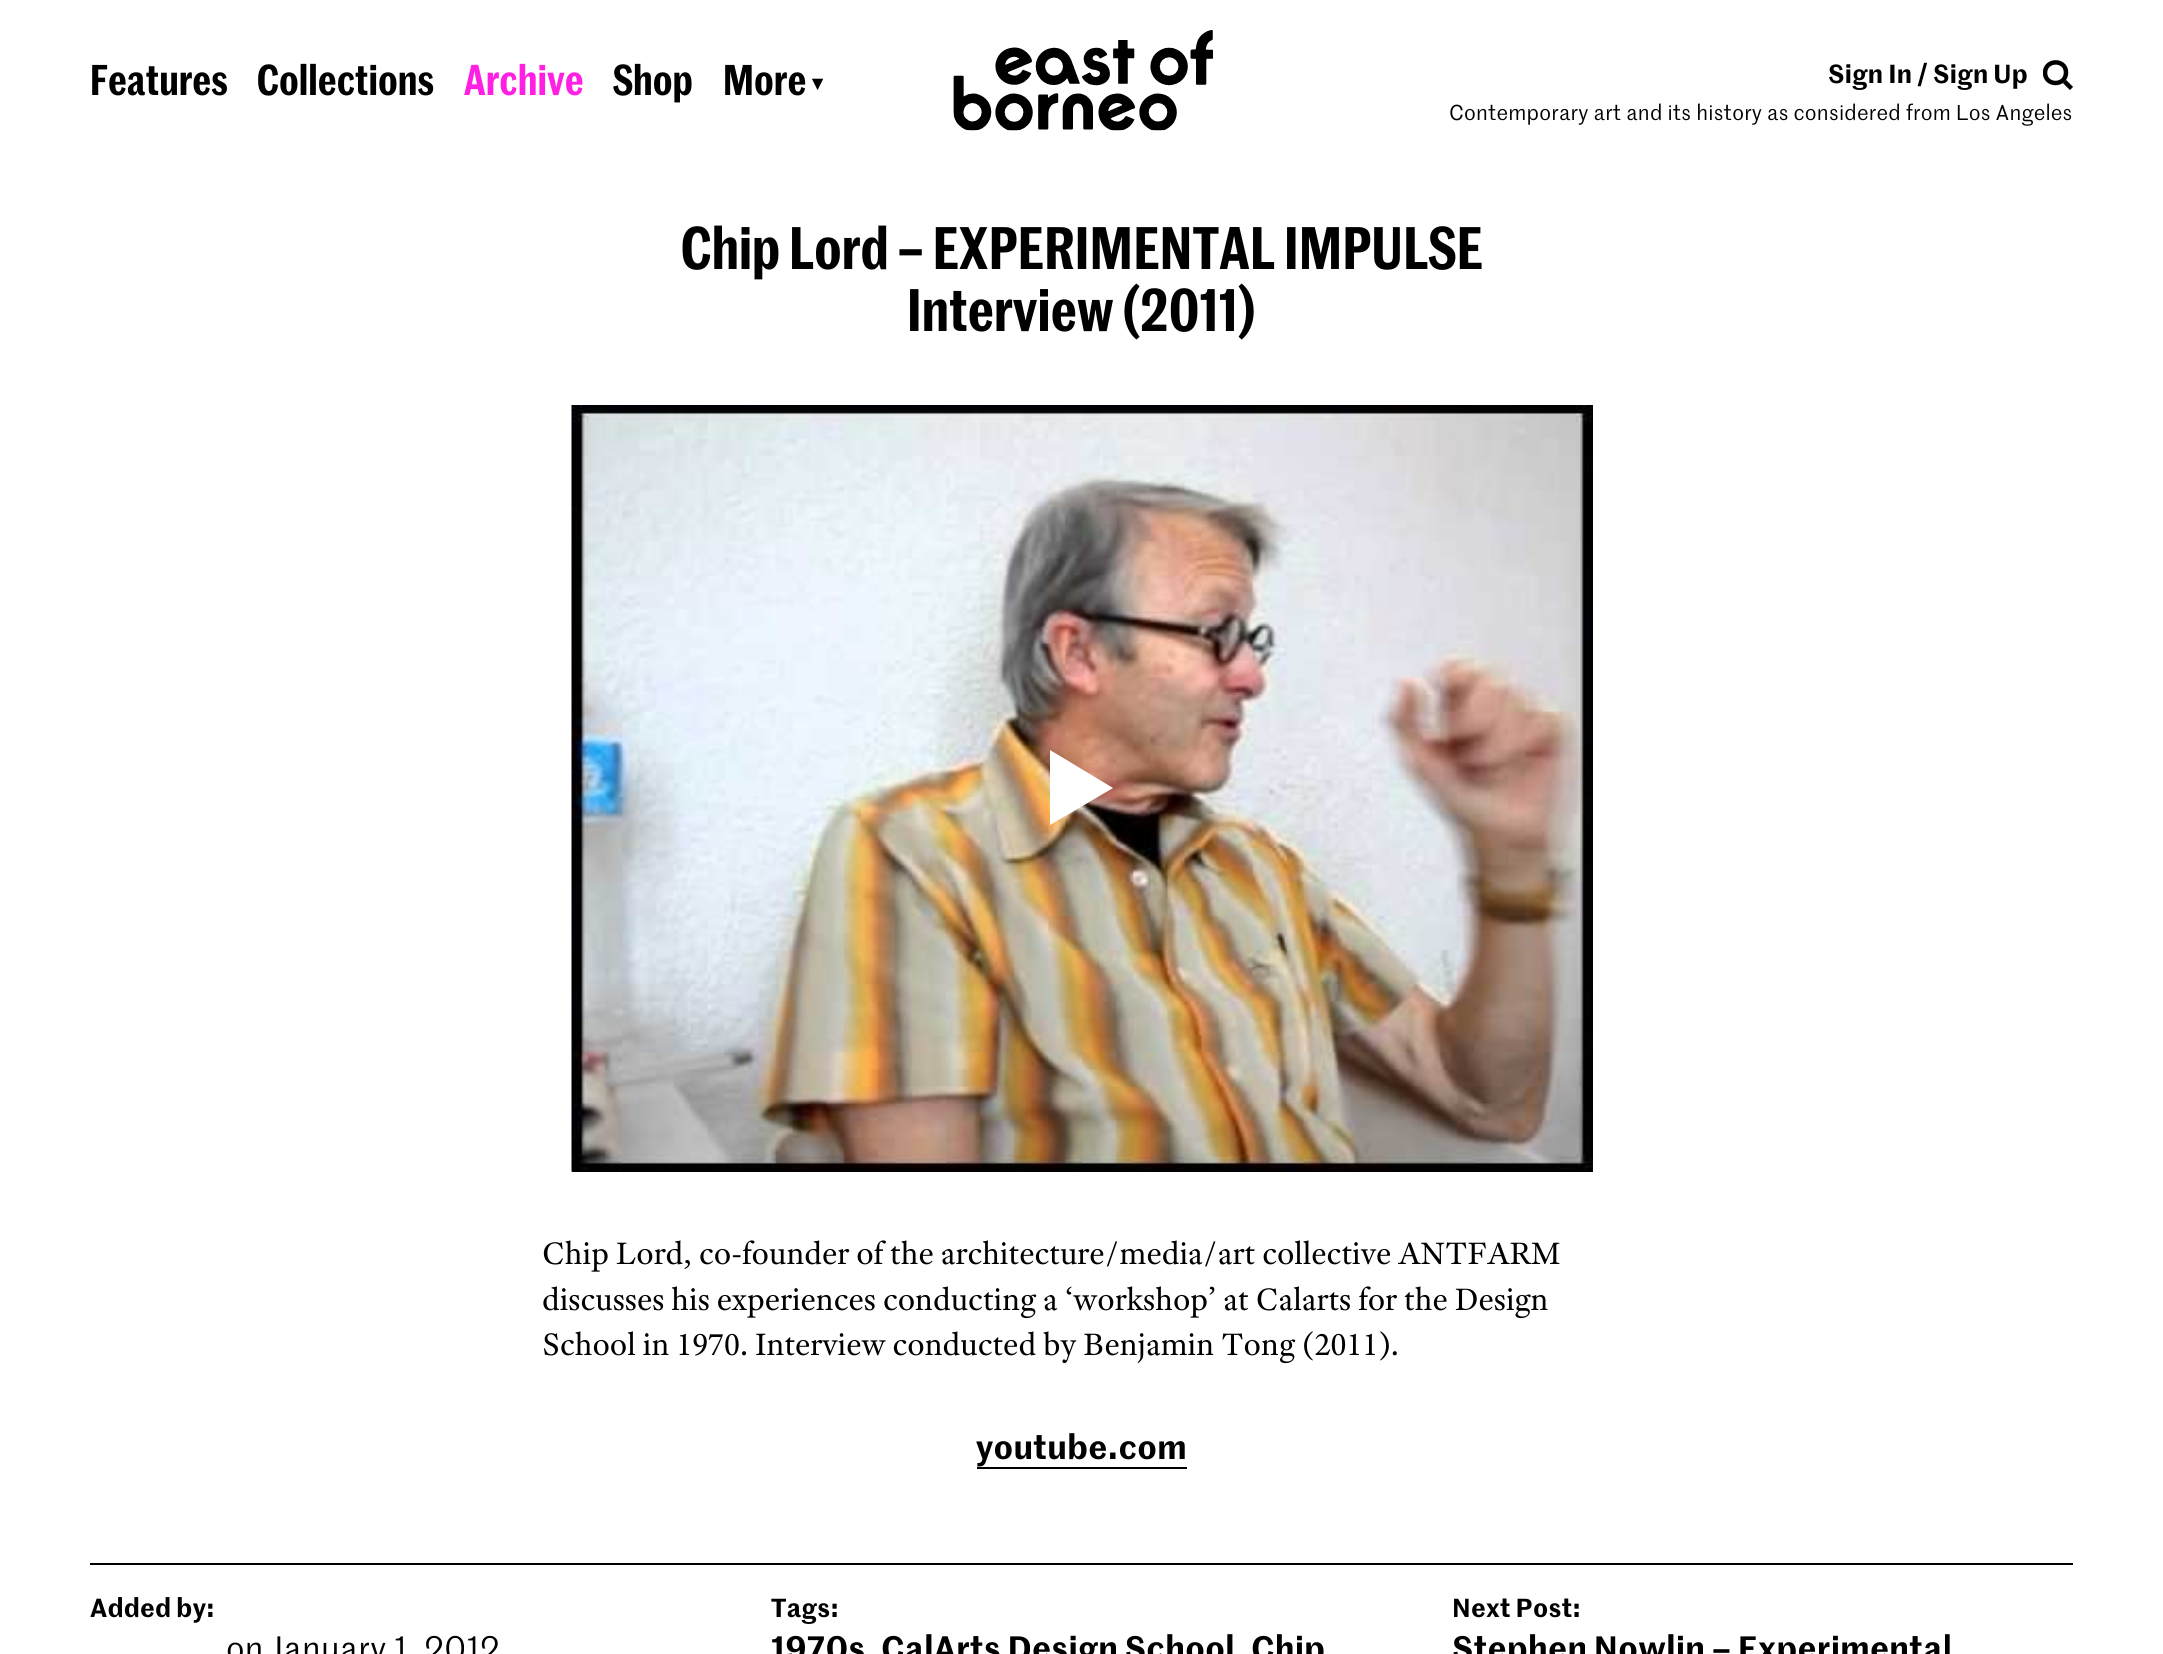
#include <cairo/cairo.h>
#include <math.h>
#include <stddef.h>


static void draw_spaced(cairo_t *cr, double x, double y, const char *s, double letter, double word) {
  cairo_move_to(cr, x, y);
  while (*s) {
    char ch[5] = {0};
    int n = 0;
    do ch[n++] = *s++; while ((*s & 0xC0) == 0x80);
    cairo_show_text(cr, ch);
    cairo_rel_move_to(cr, letter + word * (*ch == ' '), 0);
  }
}

static void draw_image(cairo_t *cr, const char *path, double x, double y, double w, double h) {
  cairo_surface_t *image = cairo_image_surface_create_from_png(path);
  cairo_save(cr);
  cairo_set_source_surface(cr, image, x, y);
  cairo_rectangle(cr, x, y, w, h);
  cairo_fill(cr);
  cairo_restore(cr);
  cairo_surface_destroy(image);
}

static void draw(cairo_t *cr) {
  cairo_set_source_rgb(cr, 1, 1, 1);
  cairo_paint(cr);
  draw_image(cr, "images/1.png", 953, 30, 260, 101);
  cairo_new_path(cr);
  cairo_move_to(cr, 2064.5, 81.5);
  cairo_line_to(cr, 2071.5, 88.5);
  cairo_set_source_rgb(cr, 0, 0, 0);
  cairo_set_line_width(cr, 4.5);
  cairo_stroke(cr);
  cairo_save(cr);
  cairo_rectangle(cr, 2043, 60, 30, 30);
  cairo_clip(cr);
  cairo_new_path(cr);
  cairo_move_to(cr, 2066, 72.5);
  cairo_curve_to(cr, 2066, 59, 2045.5, 59, 2045, 72.5);
  cairo_curve_to(cr, 2045, 86.5, 2066, 86.5, 2066, 72.5);
  cairo_close_path(cr);
  cairo_stroke(cr);
  cairo_restore(cr);
  cairo_rectangle(cr, 572, 1171, 1021, 1);
  cairo_fill(cr);
  draw_image(cr, "images/2.png", 571, 405, 1022, 767);
  cairo_set_source_rgb(cr, 1, 1, 1);
  cairo_new_path(cr);
  cairo_move_to(cr, 1050, 825);
  cairo_line_to(cr, 1050, 750);
  cairo_line_to(cr, 1113, 788);
  cairo_close_path(cr);
  cairo_fill(cr);
  cairo_set_source_rgb(cr, 0, 0, 0);
  cairo_rectangle(cr, 977, 1467, 210, 2);
  cairo_fill(cr);
  cairo_rectangle(cr, 90, 1563, 1983, 2);
  cairo_fill(cr);
  cairo_select_font_face(cr, "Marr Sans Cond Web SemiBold", CAIRO_FONT_SLANT_NORMAL, CAIRO_FONT_WEIGHT_NORMAL);
  cairo_set_font_size(cr, 42);
  draw_spaced(cr, 90, 95, "Features", 0.5, 0);
  draw_spaced(cr, 257, 95, "Collections", 0.5, 0);
  cairo_set_source_rgb(cr, 1, 32 / 255.0, 228 / 255.0);
  draw_spaced(cr, 464, 95, "Archive", 0.5, 0);
  cairo_set_source_rgb(cr, 0, 0, 0);
  draw_spaced(cr, 613, 95, "Shop", 0.5, 0);
  draw_spaced(cr, 723, 95, "More", 0.5, 0);
  cairo_select_font_face(cr, "DejaVu Sans", CAIRO_FONT_SLANT_NORMAL, CAIRO_FONT_WEIGHT_BOLD);
  cairo_set_font_size(cr, 21);
  draw_spaced(cr, 812, 90, "▾", 0.2, 0);
  cairo_select_font_face(cr, "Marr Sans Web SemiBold", CAIRO_FONT_SLANT_NORMAL, CAIRO_FONT_WEIGHT_NORMAL);
  cairo_set_font_size(cr, 25.5);
  draw_spaced(cr, 1828, 83, "Sign In / Sign Up", 0.25, 0);
  cairo_select_font_face(cr, "Marr Sans Web", CAIRO_FONT_SLANT_NORMAL, CAIRO_FONT_WEIGHT_NORMAL);
  cairo_set_font_size(cr, 21);
  draw_spaced(cr, 1449, 120, "Contemporary art and its history as considered from Los Angeles", 0.2, 0);
  cairo_select_font_face(cr, "Marr Sans Cond Web SemiBold", CAIRO_FONT_SLANT_NORMAL, CAIRO_FONT_WEIGHT_NORMAL);
  cairo_set_font_size(cr, 58.5);
  draw_spaced(cr, 681, 269, "Chip Lord – EXPERIMENTAL IMPULSE", 0.6, 0);
  draw_spaced(cr, 907, 331, "Interview (2011)", 0.6, 0);
  cairo_select_font_face(cr, "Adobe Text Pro", CAIRO_FONT_SLANT_NORMAL, CAIRO_FONT_WEIGHT_NORMAL);
  cairo_set_font_size(cr, 33);
  cairo_move_to(cr, 542, 1264);
  cairo_show_text(cr, "Chip Lord, co-founder of the architecture/media/art collective ANTFARM");
  cairo_move_to(cr, 542, 1310);
  cairo_show_text(cr, "discusses his experiences conducting a ‘workshop’ at Calarts for the Design");
  cairo_move_to(cr, 542, 1355);
  cairo_show_text(cr, "School in 1970. Interview conducted by Benjamin Tong (2011).");
  cairo_select_font_face(cr, "Marr Sans Web SemiBold", CAIRO_FONT_SLANT_NORMAL, CAIRO_FONT_WEIGHT_NORMAL);
  draw_spaced(cr, 976, 1459, "youtube.com", 0.3, 0);
  cairo_set_font_size(cr, 25.5);
  draw_spaced(cr, 90, 1617, "Added by:", 0.25, 0);
  cairo_select_font_face(cr, "Marr Sans Web", CAIRO_FONT_SLANT_NORMAL, CAIRO_FONT_WEIGHT_NORMAL);
  cairo_set_font_size(cr, 33);
  draw_spaced(cr, 226, 1660, "on January 1, 2012", 0.3, 0);
  cairo_select_font_face(cr, "Marr Sans Web SemiBold", CAIRO_FONT_SLANT_NORMAL, CAIRO_FONT_WEIGHT_NORMAL);
  cairo_set_font_size(cr, 25.5);
  draw_spaced(cr, 771, 1617, "Tags:", 0.25, 0);
  cairo_set_font_size(cr, 33);
  draw_spaced(cr, 771, 1660, "1970s", 0.3, 0);
  draw_spaced(cr, 881, 1660, "CalArts Design School", 0.3, 0);
  draw_spaced(cr, 1251, 1660, "Chip", 0.3, 0);
  cairo_set_font_size(cr, 25.5);
  draw_spaced(cr, 1452, 1617, "Next Post:", 0.25, 0);
  cairo_set_font_size(cr, 33);
  draw_spaced(cr, 1452, 1660, "Stephen Nowlin – Experimental", 0.3, 0);
}

int main(void) {
  cairo_surface_t *surface = cairo_image_surface_create(CAIRO_FORMAT_RGB24, 2163, 1654);
  cairo_t *cr = cairo_create(surface);
  cairo_font_options_t *options = cairo_font_options_create();
  cairo_font_options_set_hint_metrics(options, CAIRO_HINT_METRICS_OFF);
  cairo_font_options_set_hint_style(options, CAIRO_HINT_STYLE_NONE);
  cairo_set_font_options(cr, options);
  cairo_set_miter_limit(cr, 4);
  draw(cr);
  cairo_surface_write_to_png(surface, "out.png");
  cairo_font_options_destroy(options);
  cairo_destroy(cr);
  cairo_surface_destroy(surface);
  return 0;
}
